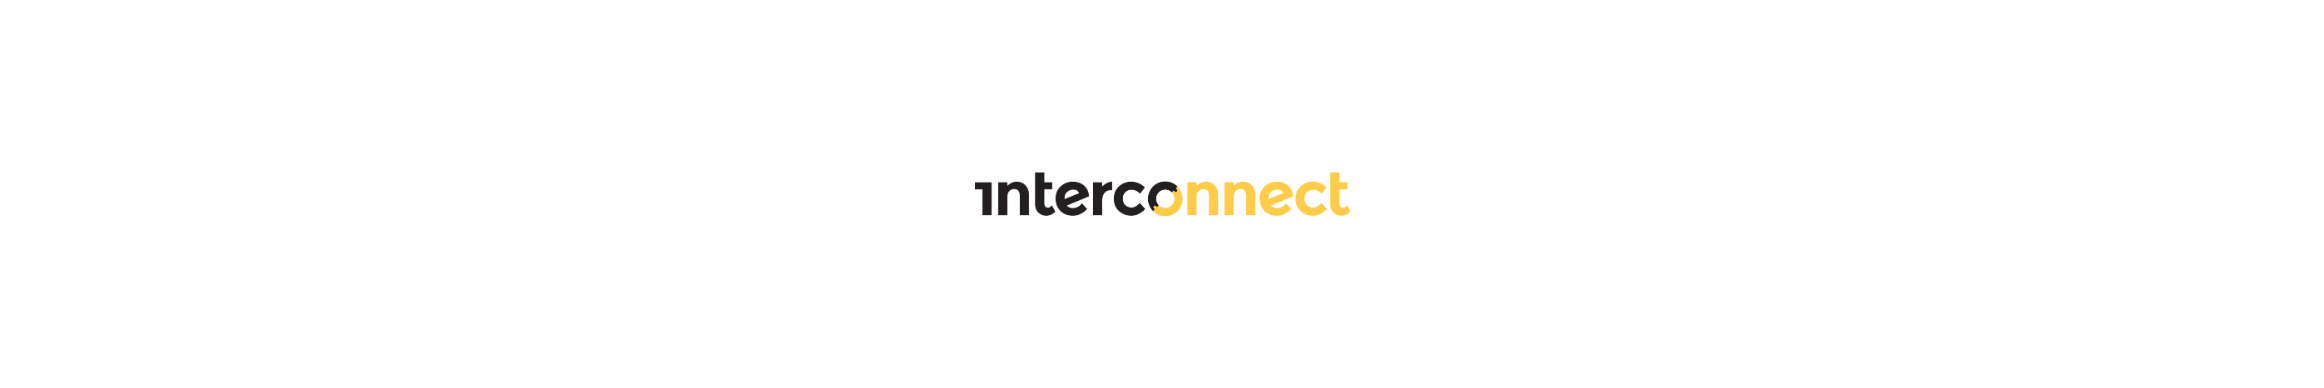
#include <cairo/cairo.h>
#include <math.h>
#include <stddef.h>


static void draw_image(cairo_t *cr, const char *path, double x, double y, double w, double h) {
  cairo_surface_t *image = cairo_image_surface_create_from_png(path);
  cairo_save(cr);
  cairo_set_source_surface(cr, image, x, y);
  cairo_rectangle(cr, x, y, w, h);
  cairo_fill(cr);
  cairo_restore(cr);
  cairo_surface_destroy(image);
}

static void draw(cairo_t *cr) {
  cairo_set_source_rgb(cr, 1, 1, 1);
  cairo_paint(cr);
  draw_image(cr, "images/1.png", 975, 172, 375, 45);
}

int main(void) {
  cairo_surface_t *surface = cairo_image_surface_create(CAIRO_FORMAT_RGB24, 2324, 388);
  cairo_t *cr = cairo_create(surface);
  cairo_font_options_t *options = cairo_font_options_create();
  cairo_font_options_set_hint_metrics(options, CAIRO_HINT_METRICS_OFF);
  cairo_font_options_set_hint_style(options, CAIRO_HINT_STYLE_NONE);
  cairo_set_font_options(cr, options);
  cairo_set_miter_limit(cr, 4);
  draw(cr);
  cairo_surface_write_to_png(surface, "out.png");
  cairo_font_options_destroy(options);
  cairo_destroy(cr);
  cairo_surface_destroy(surface);
  return 0;
}
